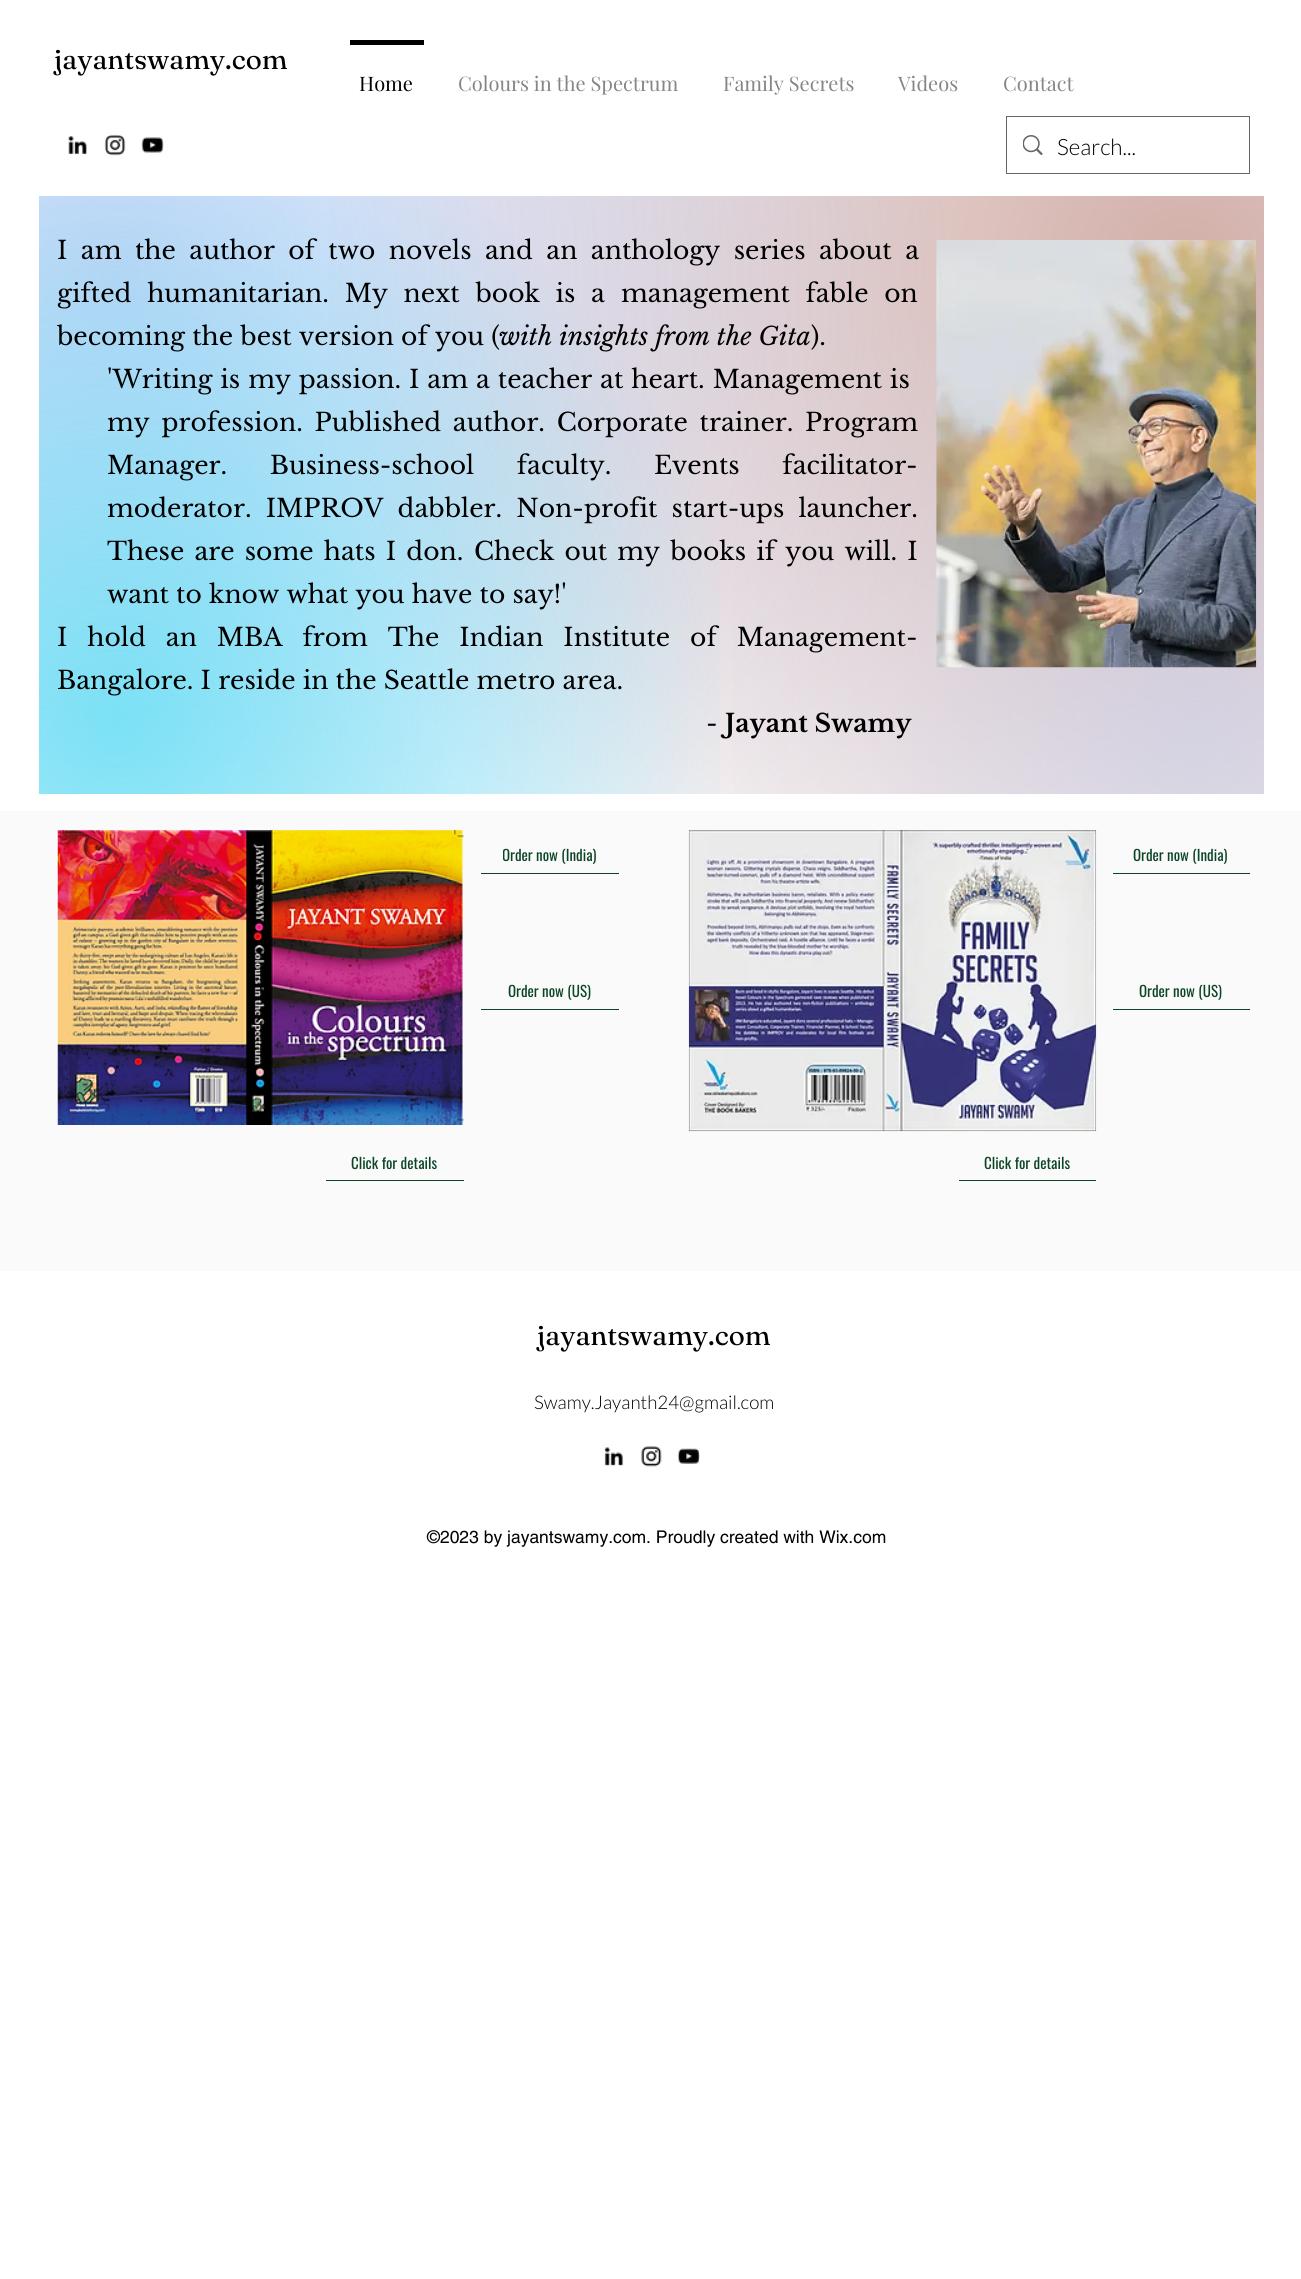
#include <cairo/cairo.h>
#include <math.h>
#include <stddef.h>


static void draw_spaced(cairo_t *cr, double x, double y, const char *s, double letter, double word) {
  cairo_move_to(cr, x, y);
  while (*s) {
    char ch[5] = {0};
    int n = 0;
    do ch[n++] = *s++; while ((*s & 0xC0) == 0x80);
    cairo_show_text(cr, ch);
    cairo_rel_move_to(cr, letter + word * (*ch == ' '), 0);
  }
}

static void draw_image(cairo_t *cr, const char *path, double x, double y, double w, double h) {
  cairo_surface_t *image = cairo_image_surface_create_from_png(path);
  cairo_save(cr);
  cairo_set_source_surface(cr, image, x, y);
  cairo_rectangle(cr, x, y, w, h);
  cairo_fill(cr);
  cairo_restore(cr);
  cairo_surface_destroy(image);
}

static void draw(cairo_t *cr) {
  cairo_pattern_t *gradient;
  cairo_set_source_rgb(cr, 1, 1, 1);
  cairo_paint(cr);
  draw_image(cr, "images/1.png", 68, 136, 19, 19);
  draw_image(cr, "images/2.png", 104, 134, 22, 22);
  draw_image(cr, "images/3.png", 141, 137, 23, 16);
  cairo_rectangle(cr, 1006.5, 116.5, 243, 57);
  cairo_set_source_rgb(cr, 102 / 255.0, 102 / 255.0, 102 / 255.0);
  cairo_set_line_width(cr, 1);
  cairo_stroke(cr);
  draw_image(cr, "images/4.png", 1023, 135, 20, 20);
  cairo_set_source_rgb(cr, 0, 0, 0);
  cairo_rectangle(cr, 350, 40, 74, 5);
  cairo_fill(cr);
  gradient = cairo_pattern_create_radial(1186, 265, 0, 1186, 265, 1264);
  cairo_pattern_add_color_stop_rgba(gradient, 0, 210 / 255.0, 175 / 255.0, 169 / 255.0, 1);
  cairo_pattern_add_color_stop_rgba(gradient, 0.7, 1, 1, 1, 1);
  cairo_set_source(cr, gradient);
  cairo_pattern_destroy(gradient);
  cairo_rectangle(cr, 328, 196, 936, 598);
  cairo_fill(cr);
  gradient = cairo_pattern_create_radial(114, 272, 0, 114, 272, 1262);
  cairo_pattern_add_color_stop_rgba(gradient, 0, 151 / 255.0, 173 / 255.0, 237 / 255.0, 0.5);
  cairo_pattern_add_color_stop_rgba(gradient, 0.7, 151 / 255.0, 173 / 255.0, 237 / 255.0, 0);
  cairo_set_source(cr, gradient);
  cairo_pattern_destroy(gradient);
  cairo_rectangle(cr, 39, 196, 906, 598);
  cairo_fill(cr);
  gradient = cairo_pattern_create_radial(118, 722, 0, 118, 722, 1260);
  cairo_pattern_add_color_stop_rgba(gradient, 0, 12 / 255.0, 215 / 255.0, 240 / 255.0, 0.49);
  cairo_pattern_add_color_stop_rgba(gradient, 0.5, 12 / 255.0, 215 / 255.0, 240 / 255.0, 0);
  cairo_set_source(cr, gradient);
  cairo_pattern_destroy(gradient);
  cairo_rectangle(cr, 39, 196, 681, 598);
  cairo_fill(cr);
  gradient = cairo_pattern_create_radial(1195, 732, 0, 1195, 732, 1274);
  cairo_pattern_add_color_stop_rgba(gradient, 0, 192 / 255.0, 203 / 255.0, 237 / 255.0, 0.5);
  cairo_pattern_add_color_stop_rgba(gradient, 0.4, 192 / 255.0, 203 / 255.0, 237 / 255.0, 0);
  cairo_set_source(cr, gradient);
  cairo_pattern_destroy(gradient);
  cairo_rectangle(cr, 733, 252, 531, 542);
  cairo_fill(cr);
  draw_image(cr, "images/5.png", 936, 240, 321, 428);
  cairo_set_source_rgb(cr, 250 / 255.0, 250 / 255.0, 250 / 255.0);
  cairo_rectangle(cr, 0, 811, 1301, 460);
  cairo_fill(cr);
  draw_image(cr, "images/6.png", 57, 830, 407, 295);
  cairo_set_source_rgb(cr, 12 / 255.0, 68 / 255.0, 38 / 255.0);
  cairo_rectangle(cr, 481, 873, 138, 1);
  cairo_fill(cr);
  cairo_rectangle(cr, 481, 1009, 138, 1);
  cairo_fill(cr);
  draw_image(cr, "images/7.png", 688, 830, 409, 302);
  cairo_rectangle(cr, 1113, 873, 137, 1);
  cairo_fill(cr);
  cairo_rectangle(cr, 1113, 1009, 137, 1);
  cairo_fill(cr);
  cairo_rectangle(cr, 326, 1180, 138, 1);
  cairo_fill(cr);
  cairo_rectangle(cr, 959, 1180, 137, 1);
  cairo_fill(cr);
  draw_image(cr, "images/8.png", 604, 1447, 20, 19);
  draw_image(cr, "images/9.png", 641, 1446, 21, 21);
  draw_image(cr, "images/10.png", 677, 1448, 23, 16);
  cairo_select_font_face(cr, "Fraunces", CAIRO_FONT_SLANT_NORMAL, CAIRO_FONT_WEIGHT_NORMAL);
  cairo_set_font_size(cr, 27.5);
  cairo_set_source_rgb(cr, 0, 0, 0);
  cairo_move_to(cr, 54, 69);
  cairo_show_text(cr, "jayantswamy.com");
  cairo_select_font_face(cr, "Lato Light", CAIRO_FONT_SLANT_NORMAL, CAIRO_FONT_WEIGHT_NORMAL);
  cairo_set_font_size(cr, 22.5);
  cairo_move_to(cr, 1057, 155);
  cairo_show_text(cr, "Search...");
  cairo_select_font_face(cr, "Playfair Display", CAIRO_FONT_SLANT_NORMAL, CAIRO_FONT_WEIGHT_NORMAL);
  cairo_set_font_size(cr, 20);
  cairo_move_to(cr, 359, 91);
  cairo_show_text(cr, "Home");
  cairo_set_source_rgb(cr, 133 / 255.0, 133 / 255.0, 133 / 255.0);
  cairo_move_to(cr, 458, 91);
  cairo_show_text(cr, "Colours in the Spectrum");
  cairo_move_to(cr, 723, 91);
  cairo_show_text(cr, "Family Secrets");
  cairo_move_to(cr, 898, 91);
  cairo_show_text(cr, "Videos");
  cairo_move_to(cr, 1003, 91);
  cairo_show_text(cr, "Contact");
  cairo_select_font_face(cr, "Libre Baskerville", CAIRO_FONT_SLANT_NORMAL, CAIRO_FONT_WEIGHT_NORMAL);
  cairo_set_font_size(cr, 25);
  cairo_set_source_rgb(cr, 0, 0, 0);
  draw_spaced(cr, 57, 259, "I am the author of two novels and an anthology series about a", 0, 6.25);
  draw_spaced(cr, 57, 302, "gifted humanitarian. My next book is a", 0, 8.5);
  draw_spaced(cr, 621, 302, "management fable on", 0, 8.5);
  cairo_move_to(cr, 57, 345);
  cairo_show_text(cr, "becoming the best version of you (");
  cairo_select_font_face(cr, "Libre Baskerville", CAIRO_FONT_SLANT_ITALIC, CAIRO_FONT_WEIGHT_NORMAL);
  cairo_move_to(cr, 499, 345);
  cairo_show_text(cr, "with insights from the Gita");
  cairo_select_font_face(cr, "Libre Baskerville", CAIRO_FONT_SLANT_NORMAL, CAIRO_FONT_WEIGHT_NORMAL);
  cairo_move_to(cr, 811, 345);
  cairo_show_text(cr, ").");
  draw_spaced(cr, 107, 388, "'Writing is my passion. I am a teacher at heart. Management is", 0, 0.75);
  draw_spaced(cr, 107, 431, "my profession. Published author. Corporate trainer. Program", 0, 4.5);
  draw_spaced(cr, 107, 474, "Manager. Business-school faculty. Events facilitator-", 0, 35.5);
  draw_spaced(cr, 107, 517, "moderator. IMPROV dabbler. Non-profit start-ups launcher.", 0, 7);
  draw_spaced(cr, 107, 560, "These are some hats I don.", 0, 3);
  draw_spaced(cr, 474, 560, "Check out my books if you will. I", 0, 3);
  cairo_move_to(cr, 107, 603);
  cairo_show_text(cr, "want to know what you have to say!'");
  draw_spaced(cr, 57, 646, "I hold an MBA from The Indian Institute of Management-", 0, 12.75);
  cairo_move_to(cr, 57, 689);
  cairo_show_text(cr, "Bangalore. I reside in the Seattle metro area.");
  cairo_move_to(cr, 706, 732);
  cairo_show_text(cr, "-");
  cairo_select_font_face(cr, "Libre Baskerville", CAIRO_FONT_SLANT_NORMAL, CAIRO_FONT_WEIGHT_BOLD);
  cairo_move_to(cr, 725, 732);
  cairo_show_text(cr, "Jayant Swamy");
  cairo_save(cr);
  cairo_rectangle(cr, 503, 844, 93, 21);
  cairo_clip(cr);
  cairo_select_font_face(cr, "Oswald", CAIRO_FONT_SLANT_NORMAL, CAIRO_FONT_WEIGHT_NORMAL);
  cairo_set_font_size(cr, 15);
  cairo_set_source_rgb(cr, 12 / 255.0, 68 / 255.0, 38 / 255.0);
  cairo_move_to(cr, 502, 861);
  cairo_show_text(cr, "Order now (India)");
  cairo_restore(cr);
  cairo_select_font_face(cr, "Oswald", CAIRO_FONT_SLANT_NORMAL, CAIRO_FONT_WEIGHT_NORMAL);
  cairo_set_font_size(cr, 15);
  cairo_set_source_rgb(cr, 12 / 255.0, 68 / 255.0, 38 / 255.0);
  cairo_move_to(cr, 508, 997);
  cairo_show_text(cr, "Order now (US)");
  cairo_move_to(cr, 1133, 861);
  cairo_show_text(cr, "Order now (India)");
  cairo_move_to(cr, 1139, 997);
  cairo_show_text(cr, "Order now (US)");
  cairo_move_to(cr, 351, 1169);
  cairo_show_text(cr, "Click for details");
  cairo_move_to(cr, 984, 1169);
  cairo_show_text(cr, "Click for details");
  cairo_select_font_face(cr, "Fraunces", CAIRO_FONT_SLANT_NORMAL, CAIRO_FONT_WEIGHT_NORMAL);
  cairo_set_font_size(cr, 27.5);
  cairo_set_source_rgb(cr, 0, 0, 0);
  cairo_move_to(cr, 537, 1345);
  cairo_show_text(cr, "jayantswamy.com");
  cairo_select_font_face(cr, "Lato Light", CAIRO_FONT_SLANT_NORMAL, CAIRO_FONT_WEIGHT_NORMAL);
  cairo_set_font_size(cr, 18.75);
  cairo_move_to(cr, 534, 1409);
  cairo_show_text(cr, "Swamy.Jayanth24@gmail.com");
  cairo_select_font_face(cr, "helvetica", CAIRO_FONT_SLANT_NORMAL, CAIRO_FONT_WEIGHT_NORMAL);
  cairo_set_font_size(cr, 17.5);
  cairo_move_to(cr, 427, 1543);
  cairo_show_text(cr, "©2023 by jayantswamy.com. Proudly created with Wix.com");
}

int main(void) {
  cairo_surface_t *surface = cairo_image_surface_create(CAIRO_FORMAT_RGB24, 1301, 2279);
  cairo_t *cr = cairo_create(surface);
  cairo_font_options_t *options = cairo_font_options_create();
  cairo_font_options_set_hint_metrics(options, CAIRO_HINT_METRICS_OFF);
  cairo_font_options_set_hint_style(options, CAIRO_HINT_STYLE_NONE);
  cairo_set_font_options(cr, options);
  cairo_set_miter_limit(cr, 4);
  draw(cr);
  cairo_surface_write_to_png(surface, "out.png");
  cairo_font_options_destroy(options);
  cairo_destroy(cr);
  cairo_surface_destroy(surface);
  return 0;
}
